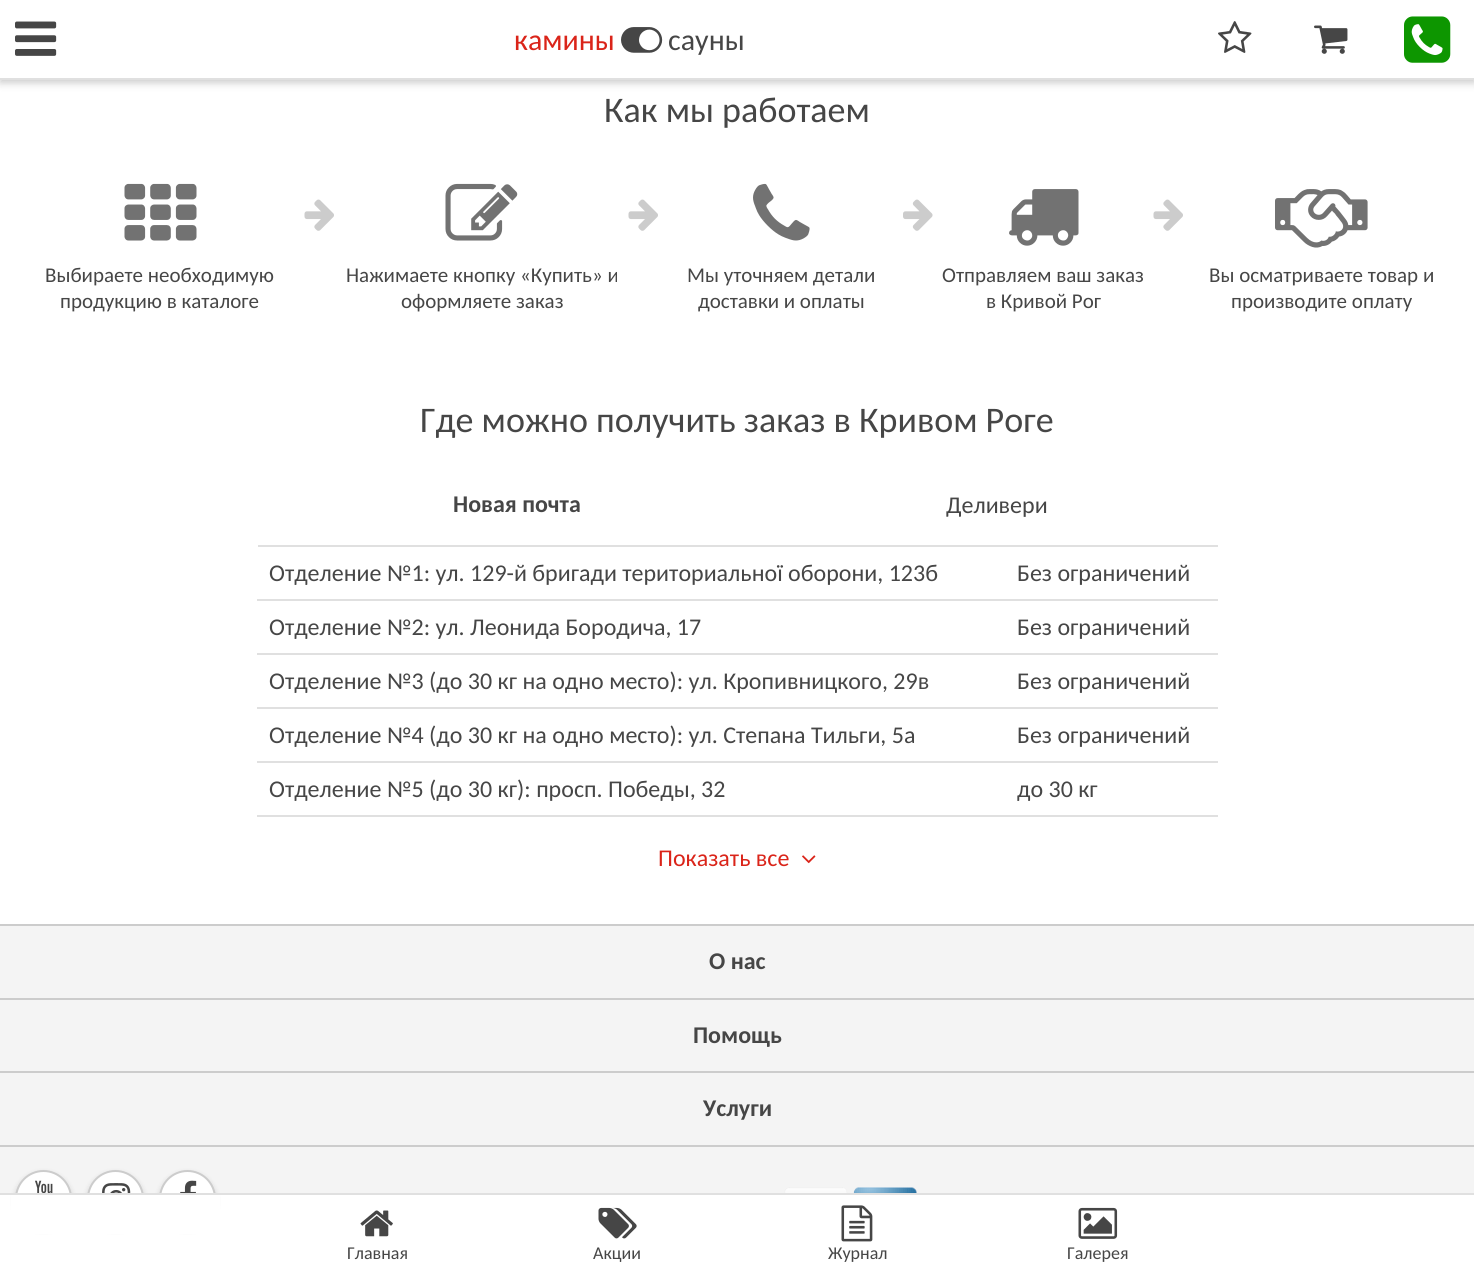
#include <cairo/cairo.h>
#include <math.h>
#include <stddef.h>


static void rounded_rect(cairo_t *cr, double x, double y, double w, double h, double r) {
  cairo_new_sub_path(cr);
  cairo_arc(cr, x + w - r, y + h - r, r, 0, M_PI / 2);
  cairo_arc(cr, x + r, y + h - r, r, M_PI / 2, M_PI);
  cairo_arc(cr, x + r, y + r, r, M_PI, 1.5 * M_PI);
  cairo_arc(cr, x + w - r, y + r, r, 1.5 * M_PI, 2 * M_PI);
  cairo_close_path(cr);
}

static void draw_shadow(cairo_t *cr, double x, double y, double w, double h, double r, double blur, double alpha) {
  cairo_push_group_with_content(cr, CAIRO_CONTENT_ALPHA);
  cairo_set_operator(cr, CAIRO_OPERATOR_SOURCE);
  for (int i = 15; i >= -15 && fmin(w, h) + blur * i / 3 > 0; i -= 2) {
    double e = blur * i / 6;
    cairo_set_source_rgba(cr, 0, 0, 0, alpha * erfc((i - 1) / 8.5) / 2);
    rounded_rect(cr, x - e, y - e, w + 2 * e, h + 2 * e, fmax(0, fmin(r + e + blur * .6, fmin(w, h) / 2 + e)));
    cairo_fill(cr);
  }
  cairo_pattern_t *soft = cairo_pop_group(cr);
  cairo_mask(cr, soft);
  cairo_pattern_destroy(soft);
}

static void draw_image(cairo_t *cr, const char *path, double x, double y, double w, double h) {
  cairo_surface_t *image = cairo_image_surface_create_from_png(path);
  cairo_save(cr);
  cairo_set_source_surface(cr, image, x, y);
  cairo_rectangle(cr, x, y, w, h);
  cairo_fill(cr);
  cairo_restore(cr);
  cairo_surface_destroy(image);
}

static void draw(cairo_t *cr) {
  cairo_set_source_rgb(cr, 1, 1, 1);
  cairo_paint(cr);
  cairo_set_source_rgb(cr, 0, 0, 0);
  draw_shadow(cr, 0, 3, 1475, 80, 0, 4, 0.2);
  cairo_set_source_rgb(cr, 1, 1, 1);
  cairo_rectangle(cr, 0, 0, 1474, 78);
  cairo_fill(cr);
  cairo_set_source_rgb(cr, 224 / 255.0, 224 / 255.0, 224 / 255.0);
  cairo_rectangle(cr, 0, 78, 1474, 2);
  cairo_fill(cr);
  draw_image(cr, "images/1.png", 15, 21, 42, 35);
  draw_image(cr, "images/2.png", 621, 27, 42, 26);
  draw_image(cr, "images/3.png", 1218, 21, 34, 32);
  draw_image(cr, "images/4.png", 1314, 25, 34, 29);
  draw_image(cr, "images/5.png", 1404, 16, 47, 47);
  draw_image(cr, "images/6.png", 304, 199, 30, 32);
  draw_image(cr, "images/6.png", 628, 199, 30, 32);
  draw_image(cr, "images/7.png", 903, 199, 30, 32);
  draw_image(cr, "images/6.png", 1153, 199, 30, 32);
  draw_image(cr, "images/8.png", 124, 183, 73, 58);
  draw_image(cr, "images/9.png", 445, 183, 73, 58);
  draw_image(cr, "images/10.png", 753, 183, 57, 58);
  draw_image(cr, "images/11.png", 1009, 189, 70, 57);
  draw_image(cr, "images/12.png", 1275, 189, 93, 59);
  cairo_rectangle(cr, 258, 545, 960, 2);
  cairo_fill(cr);
  cairo_rectangle(cr, 257, 599, 961, 2);
  cairo_fill(cr);
  cairo_rectangle(cr, 257, 653, 961, 2);
  cairo_fill(cr);
  cairo_rectangle(cr, 257, 707, 961, 2);
  cairo_fill(cr);
  cairo_rectangle(cr, 257, 761, 961, 2);
  cairo_fill(cr);
  cairo_rectangle(cr, 257, 815, 961, 2);
  cairo_fill(cr);
  draw_image(cr, "images/13.png", 802, 855, 14, 9);
  cairo_set_source_rgb(cr, 244 / 255.0, 244 / 255.0, 244 / 255.0);
  cairo_rectangle(cr, 0, 926, 1474, 267);
  cairo_fill(cr);
  cairo_set_source_rgb(cr, 204 / 255.0, 204 / 255.0, 204 / 255.0);
  cairo_rectangle(cr, 0, 924, 1474, 2);
  cairo_fill(cr);
  cairo_rectangle(cr, 0, 998, 1474, 2);
  cairo_fill(cr);
  cairo_rectangle(cr, 0, 1071, 1474, 2);
  cairo_fill(cr);
  cairo_rectangle(cr, 0, 1145, 1474, 2);
  cairo_fill(cr);
  cairo_set_source_rgb(cr, 0, 0, 0);
  draw_shadow(cr, 15, 1173, 57, 57, 28.5, 3, 0.15);
  cairo_set_source_rgb(cr, 1, 1, 1);
  cairo_arc(cr, 43.5, 1198.5, 27.5, 0, 2 * M_PI);
  cairo_fill_preserve(cr);
  cairo_set_source_rgb(cr, 204 / 255.0, 204 / 255.0, 204 / 255.0);
  cairo_stroke(cr);
  draw_image(cr, "images/14.png", 35, 1180, 18, 13);
  cairo_set_source_rgb(cr, 0, 0, 0);
  draw_shadow(cr, 87, 1173, 57, 57, 28.5, 3, 0.15);
  cairo_set_source_rgb(cr, 1, 1, 1);
  cairo_arc(cr, 115.5, 1198.5, 27.5, 0, 2 * M_PI);
  cairo_fill_preserve(cr);
  cairo_set_source_rgb(cr, 204 / 255.0, 204 / 255.0, 204 / 255.0);
  cairo_stroke(cr);
  draw_image(cr, "images/15.png", 102, 1183, 29, 10);
  cairo_set_source_rgb(cr, 0, 0, 0);
  draw_shadow(cr, 159, 1173, 57, 57, 28.5, 3, 0.15);
  cairo_set_source_rgb(cr, 1, 1, 1);
  cairo_arc(cr, 187.5, 1198.5, 27.5, 0, 2 * M_PI);
  cairo_fill_preserve(cr);
  cairo_set_source_rgb(cr, 204 / 255.0, 204 / 255.0, 204 / 255.0);
  cairo_stroke(cr);
  draw_image(cr, "images/16.png", 180, 1180, 17, 13);
  draw_image(cr, "images/17.png", 784, 1187, 133, 6);
  cairo_set_source_rgb(cr, 1, 1, 1);
  cairo_rectangle(cr, 11, 1195, 209, 39);
  cairo_fill(cr);
  cairo_set_source_rgb(cr, 224 / 255.0, 224 / 255.0, 224 / 255.0);
  cairo_rectangle(cr, 0, 1193, 1474, 2);
  cairo_fill(cr);
  draw_image(cr, "images/18.png", 360, 1210, 33, 27);
  draw_image(cr, "images/19.png", 598, 1207, 39, 32);
  draw_image(cr, "images/20.png", 841, 1205, 32, 37);
  draw_image(cr, "images/21.png", 1078, 1207, 40, 32);
  cairo_select_font_face(cr, "Carlito", CAIRO_FONT_SLANT_NORMAL, CAIRO_FONT_WEIGHT_NORMAL);
  cairo_set_font_size(cr, 30);
  cairo_set_source_rgb(cr, 218 / 255.0, 36 / 255.0, 25 / 255.0);
  cairo_move_to(cr, 514, 50);
  cairo_show_text(cr, "камины");
  cairo_set_source_rgb(cr, 70 / 255.0, 70 / 255.0, 70 / 255.0);
  cairo_move_to(cr, 668, 50);
  cairo_show_text(cr, "сауны");
  cairo_set_font_size(cr, 36);
  cairo_move_to(cr, 604, 122);
  cairo_show_text(cr, "Как мы работаем");
  cairo_set_font_size(cr, 21);
  cairo_move_to(cr, 45, 282);
  cairo_show_text(cr, "Выбираете необходимую");
  cairo_move_to(cr, 60, 308);
  cairo_show_text(cr, "продукцию в каталоге");
  cairo_move_to(cr, 346, 282);
  cairo_show_text(cr, "Нажимаете кнопку «Купить» и");
  cairo_move_to(cr, 401, 308);
  cairo_show_text(cr, "оформляете заказ");
  cairo_move_to(cr, 687, 282);
  cairo_show_text(cr, "Мы уточняем детали");
  cairo_move_to(cr, 698, 308);
  cairo_show_text(cr, "доставки и оплаты");
  cairo_move_to(cr, 942, 282);
  cairo_show_text(cr, "Отправляем ваш заказ");
  cairo_move_to(cr, 986, 308);
  cairo_show_text(cr, "в Кривой Рог");
  cairo_move_to(cr, 1209, 282);
  cairo_show_text(cr, "Вы осматриваете товар и");
  cairo_move_to(cr, 1231, 308);
  cairo_show_text(cr, "производите оплату");
  cairo_set_font_size(cr, 36);
  cairo_move_to(cr, 420, 432);
  cairo_show_text(cr, "Где можно получить заказ в Кривом Роге");
  cairo_select_font_face(cr, "Carlito", CAIRO_FONT_SLANT_NORMAL, CAIRO_FONT_WEIGHT_BOLD);
  cairo_set_font_size(cr, 24);
  cairo_move_to(cr, 453, 512);
  cairo_show_text(cr, "Новая почта");
  cairo_select_font_face(cr, "Carlito", CAIRO_FONT_SLANT_NORMAL, CAIRO_FONT_WEIGHT_NORMAL);
  cairo_move_to(cr, 946, 513);
  cairo_show_text(cr, "Деливери");
  cairo_move_to(cr, 269, 581);
  cairo_show_text(cr, "Отделение №1: ул. 129-й бригади териториальної оборони, 123б");
  cairo_move_to(cr, 1017, 581);
  cairo_show_text(cr, "Без ограничений");
  cairo_move_to(cr, 269, 635);
  cairo_show_text(cr, "Отделение №2: ул. Леонида Бородича, 17");
  cairo_move_to(cr, 1017, 635);
  cairo_show_text(cr, "Без ограничений");
  cairo_move_to(cr, 269, 689);
  cairo_show_text(cr, "Отделение №3 (до 30 кг на одно место): ул. Кропивницкого, 29в");
  cairo_move_to(cr, 1017, 689);
  cairo_show_text(cr, "Без ограничений");
  cairo_move_to(cr, 269, 743);
  cairo_show_text(cr, "Отделение №4 (до 30 кг на одно место): ул. Степана Тильги, 5а");
  cairo_move_to(cr, 1017, 743);
  cairo_show_text(cr, "Без ограничений");
  cairo_move_to(cr, 269, 797);
  cairo_show_text(cr, "Отделение №5 (до 30 кг): просп. Победы, 32");
  cairo_move_to(cr, 1017, 797);
  cairo_show_text(cr, "до 30 кг");
  cairo_set_source_rgb(cr, 218 / 255.0, 36 / 255.0, 25 / 255.0);
  cairo_move_to(cr, 658, 866);
  cairo_show_text(cr, "Показать все");
  cairo_select_font_face(cr, "Carlito", CAIRO_FONT_SLANT_NORMAL, CAIRO_FONT_WEIGHT_BOLD);
  cairo_set_source_rgb(cr, 70 / 255.0, 70 / 255.0, 70 / 255.0);
  cairo_move_to(cr, 709, 969);
  cairo_show_text(cr, "О нас");
  cairo_move_to(cr, 693, 1043);
  cairo_show_text(cr, "Помощь");
  cairo_move_to(cr, 703, 1116);
  cairo_show_text(cr, "Услуги");
  cairo_select_font_face(cr, "Carlito", CAIRO_FONT_SLANT_NORMAL, CAIRO_FONT_WEIGHT_NORMAL);
  cairo_set_font_size(cr, 18);
  cairo_move_to(cr, 347, 1259);
  cairo_show_text(cr, "Главная");
  cairo_move_to(cr, 593, 1259);
  cairo_show_text(cr, "Акции");
  cairo_move_to(cr, 828, 1259);
  cairo_show_text(cr, "Журнал");
  cairo_move_to(cr, 1067, 1259);
  cairo_show_text(cr, "Галерея");
}

int main(void) {
  cairo_surface_t *surface = cairo_image_surface_create(CAIRO_FORMAT_RGB24, 1474, 1277);
  cairo_t *cr = cairo_create(surface);
  cairo_font_options_t *options = cairo_font_options_create();
  cairo_font_options_set_hint_metrics(options, CAIRO_HINT_METRICS_OFF);
  cairo_font_options_set_hint_style(options, CAIRO_HINT_STYLE_NONE);
  cairo_set_font_options(cr, options);
  cairo_set_miter_limit(cr, 4);
  draw(cr);
  cairo_surface_write_to_png(surface, "out.png");
  cairo_font_options_destroy(options);
  cairo_destroy(cr);
  cairo_surface_destroy(surface);
  return 0;
}
